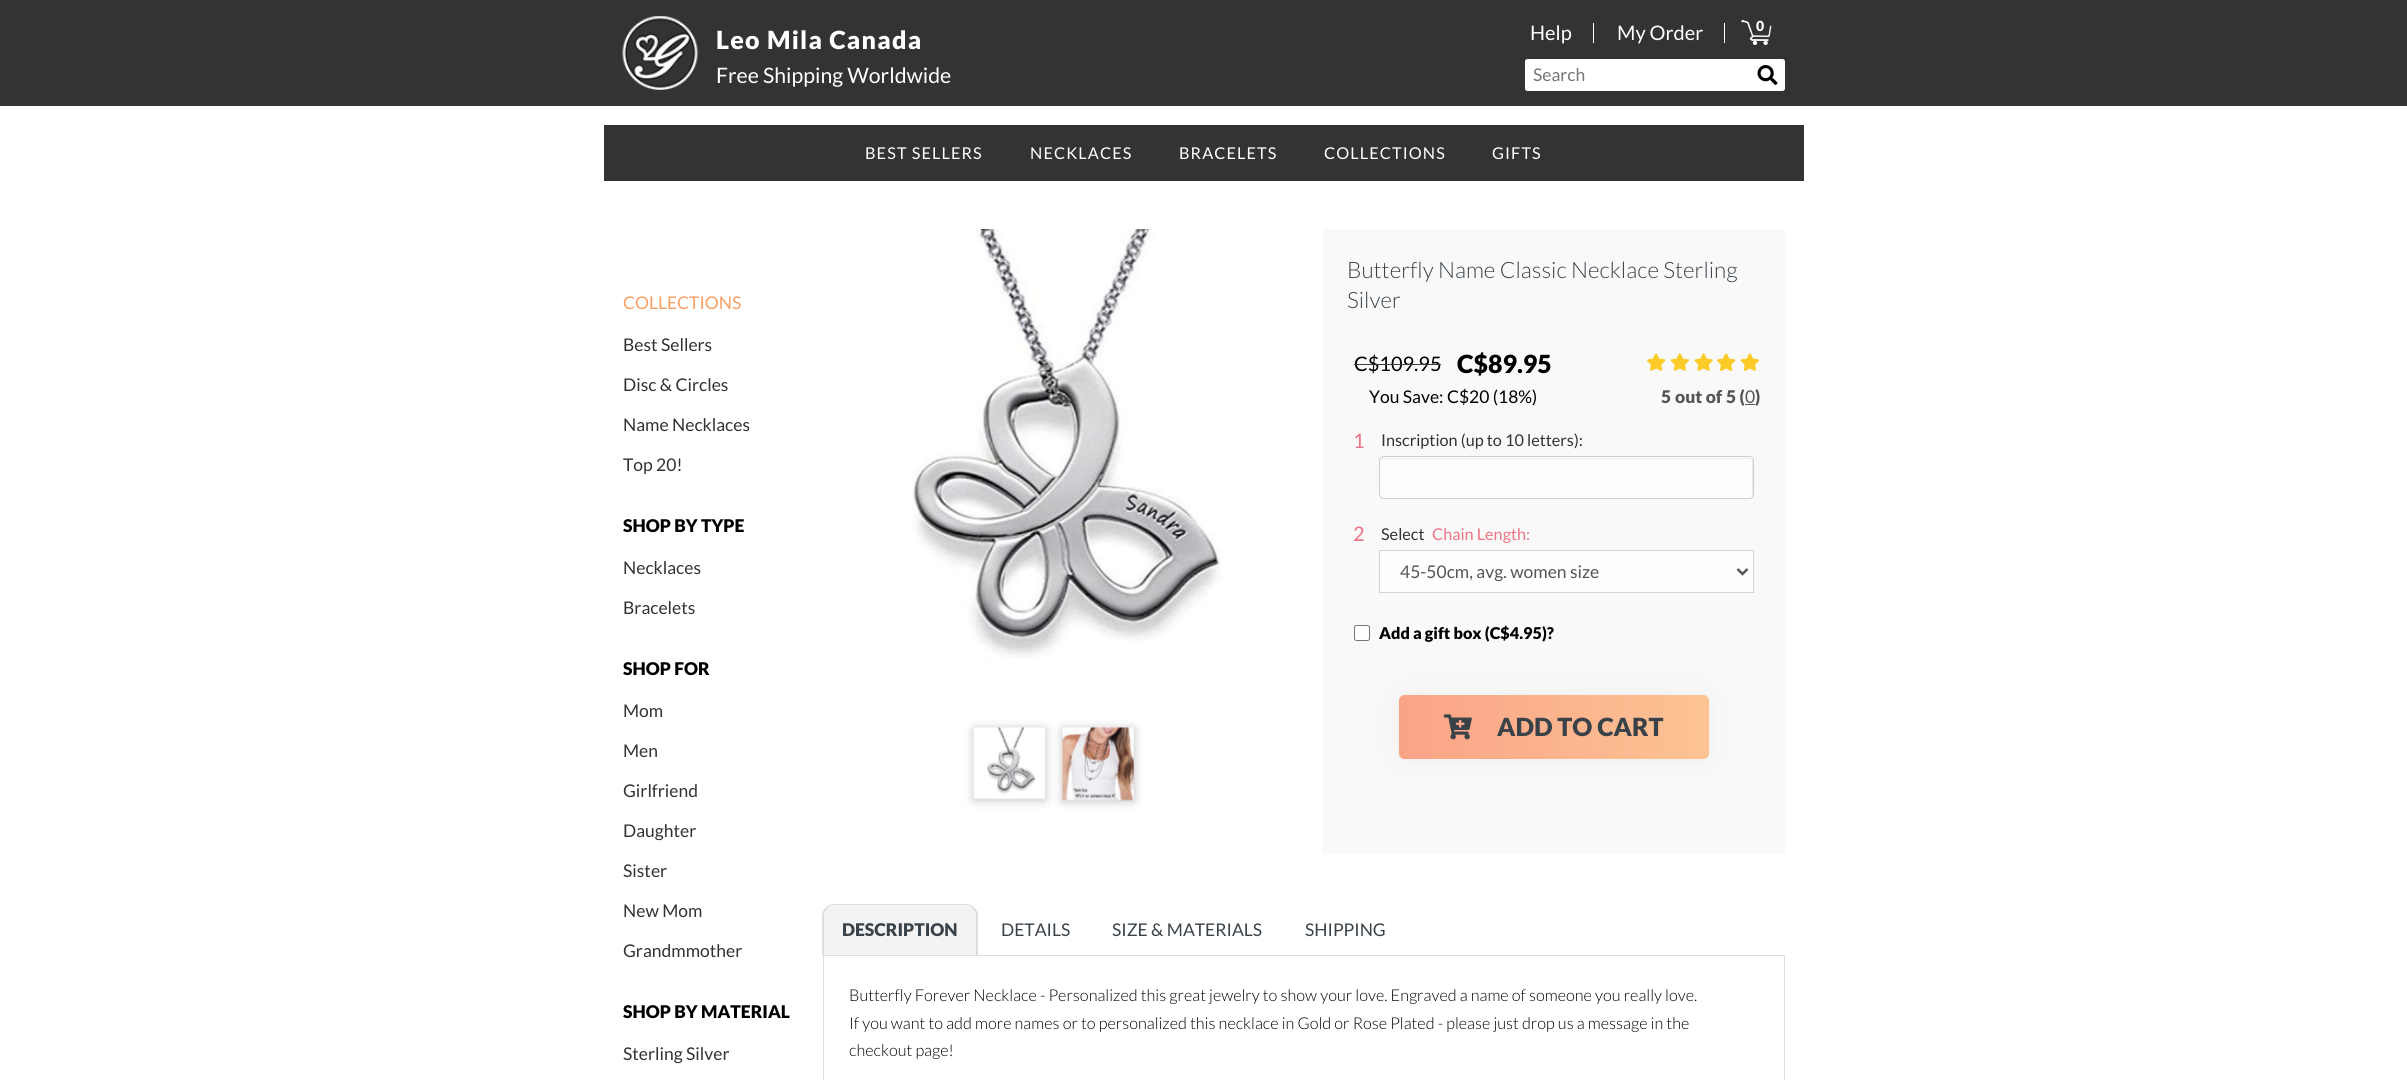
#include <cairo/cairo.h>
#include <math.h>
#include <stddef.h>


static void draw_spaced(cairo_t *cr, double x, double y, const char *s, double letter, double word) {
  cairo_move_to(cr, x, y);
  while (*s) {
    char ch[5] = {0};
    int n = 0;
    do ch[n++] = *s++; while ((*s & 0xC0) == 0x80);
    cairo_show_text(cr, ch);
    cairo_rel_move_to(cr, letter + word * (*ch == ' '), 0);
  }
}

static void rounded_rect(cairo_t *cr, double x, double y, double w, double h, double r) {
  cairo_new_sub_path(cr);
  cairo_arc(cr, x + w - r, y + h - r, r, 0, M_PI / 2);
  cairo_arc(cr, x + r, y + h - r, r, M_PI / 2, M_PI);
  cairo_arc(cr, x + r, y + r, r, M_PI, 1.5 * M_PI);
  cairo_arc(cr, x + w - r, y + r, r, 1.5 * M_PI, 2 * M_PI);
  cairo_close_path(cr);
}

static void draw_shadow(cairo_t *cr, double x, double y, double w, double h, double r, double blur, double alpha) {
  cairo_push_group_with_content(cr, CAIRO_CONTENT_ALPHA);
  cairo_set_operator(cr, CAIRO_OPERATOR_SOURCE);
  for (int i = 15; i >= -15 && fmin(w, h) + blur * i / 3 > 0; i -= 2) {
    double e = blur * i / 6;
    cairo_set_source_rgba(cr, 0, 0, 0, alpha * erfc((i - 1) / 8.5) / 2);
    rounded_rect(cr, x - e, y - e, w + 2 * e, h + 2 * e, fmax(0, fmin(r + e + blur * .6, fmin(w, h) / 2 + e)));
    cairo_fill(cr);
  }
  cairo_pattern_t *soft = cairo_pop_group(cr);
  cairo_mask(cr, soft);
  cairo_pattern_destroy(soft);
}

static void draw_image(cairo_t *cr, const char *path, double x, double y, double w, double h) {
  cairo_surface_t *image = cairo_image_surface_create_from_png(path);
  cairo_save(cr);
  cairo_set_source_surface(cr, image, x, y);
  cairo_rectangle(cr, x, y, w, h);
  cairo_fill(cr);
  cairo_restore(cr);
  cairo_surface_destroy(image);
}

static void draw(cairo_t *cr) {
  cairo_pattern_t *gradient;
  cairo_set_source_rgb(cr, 1, 1, 1);
  cairo_paint(cr);
  cairo_set_source_rgb(cr, 51 / 255.0, 51 / 255.0, 51 / 255.0);
  cairo_rectangle(cr, 0, 0, 2407, 106);
  cairo_fill(cr);
  draw_image(cr, "images/1.png", 622, 16, 76, 74);
  cairo_set_source_rgb(cr, 1, 1, 1);
  cairo_rectangle(cr, 1593, 23, 1, 20);
  cairo_fill(cr);
  cairo_rectangle(cr, 1724, 23, 1, 20);
  cairo_fill(cr);
  draw_image(cr, "images/2.png", 1741, 20, 31, 25);
  rounded_rect(cr, 1525, 59, 260, 32, 2.5);
  cairo_fill(cr);
  draw_image(cr, "images/3.png", 1757, 65, 21, 20);
  cairo_set_source_rgb(cr, 51 / 255.0, 51 / 255.0, 51 / 255.0);
  cairo_rectangle(cr, 604, 125, 1200, 56);
  cairo_fill(cr);
  draw_image(cr, "images/4.png", 911, 229, 312, 430);
  cairo_set_source_rgb(cr, 0, 0, 0);
  draw_shadow(cr, 974, 729, 71, 71, 0, 5, 0.25);
  draw_image(cr, "images/5.png", 973, 727, 73, 73);
  draw_shadow(cr, 1063, 729, 71, 72, 0, 5, 0.25);
  draw_image(cr, "images/6.png", 1061, 727, 73, 74);
  cairo_set_source_rgb(cr, 249 / 255.0, 249 / 255.0, 249 / 255.0);
  cairo_rectangle(cr, 1323, 229, 462, 625);
  cairo_fill(cr);
  draw_image(cr, "images/7.png", 1647, 353, 19, 18);
  draw_image(cr, "images/8.png", 1670, 353, 19, 18);
  draw_image(cr, "images/9.png", 1694, 353, 19, 18);
  draw_image(cr, "images/7.png", 1717, 353, 19, 18);
  draw_image(cr, "images/8.png", 1740, 353, 19, 18);
  cairo_set_source_rgb(cr, 85 / 255.0, 85 / 255.0, 85 / 255.0);
  cairo_rectangle(cr, 1745, 404, 10, 1);
  cairo_fill(cr);
  cairo_set_source_rgb(cr, 254 / 255.0, 254 / 255.0, 254 / 255.0);
  rounded_rect(cr, 1379, 456, 375, 43, 5);
  cairo_fill(cr);
  cairo_set_source_rgb(cr, 235 / 255.0, 235 / 255.0, 235 / 255.0);
  cairo_new_path(cr);
  cairo_move_to(cr, 1384, 459);
  cairo_line_to(cr, 1749, 459);
  cairo_curve_to(cr, 1751, 459, 1752, 460, 1752, 462);
  cairo_line_to(cr, 1752, 497);
  cairo_curve_to(cr, 1752, 496, 1753, 495, 1753, 494);
  cairo_line_to(cr, 1753, 462);
  cairo_curve_to(cr, 1753, 460, 1751, 458, 1749, 458);
  cairo_line_to(cr, 1384, 458);
  cairo_curve_to(cr, 1382, 458, 1380, 460, 1380, 462);
  cairo_curve_to(cr, 1380, 460, 1382, 459, 1384, 459);
  cairo_close_path(cr);
  cairo_fill(cr);
  rounded_rect(cr, 1379.5, 456.5, 374, 42, 4.5);
  cairo_set_source_rgb(cr, 204 / 255.0, 204 / 255.0, 204 / 255.0);
  cairo_set_line_width(cr, 1);
  cairo_stroke(cr);
  cairo_set_source_rgb(cr, 254 / 255.0, 254 / 255.0, 254 / 255.0);
  cairo_rectangle(cr, 1379.5, 550.5, 374, 42);
  cairo_fill_preserve(cr);
  cairo_set_source_rgb(cr, 211 / 255.0, 211 / 255.0, 211 / 255.0);
  cairo_stroke(cr);
  cairo_new_path(cr);
  cairo_move_to(cr, 1737.5, 569);
  cairo_line_to(cr, 1742.5, 574);
  cairo_line_to(cr, 1747.5, 569);
  cairo_set_source_rgb(cr, 85 / 255.0, 85 / 255.0, 85 / 255.0);
  cairo_set_line_width(cr, 2.5);
  cairo_stroke(cr);
  cairo_set_source_rgb(cr, 1, 1, 1);
  rounded_rect(cr, 1354.5, 625.5, 15, 15, 2);
  cairo_fill_preserve(cr);
  cairo_set_source_rgb(cr, 118 / 255.0, 118 / 255.0, 118 / 255.0);
  cairo_set_line_width(cr, 1);
  cairo_stroke(cr);
  cairo_set_source_rgb(cr, 238 / 255.0, 238 / 255.0, 238 / 255.0);
  draw_shadow(cr, 1399, 695, 310, 64, 6, 12.5, 1);
  cairo_set_source_rgb(cr, 252 / 255.0, 196 / 255.0, 147 / 255.0);
  rounded_rect(cr, 1399, 695, 310, 64, 6);
  cairo_fill(cr);
  cairo_save(cr);
  rounded_rect(cr, 1399, 695, 310, 64, 6);
  cairo_clip(cr);
  gradient = cairo_pattern_create_linear(785, 727, 1400, 727);
  cairo_pattern_add_color_stop_rgba(gradient, 0, 251 / 255.0, 163 / 255.0, 135 / 255.0, 1);
  cairo_pattern_add_color_stop_rgba(gradient, 0.51, 252 / 255.0, 196 / 255.0, 147 / 255.0, 1);
  cairo_pattern_add_color_stop_rgba(gradient, 1, 251 / 255.0, 163 / 255.0, 135 / 255.0, 1);
  cairo_set_source(cr, gradient);
  cairo_pattern_destroy(gradient);
  cairo_rectangle(cr, 1399, 695, 1, 64);
  cairo_fill(cr);
  gradient = cairo_pattern_create_linear(1400, 727, 2015, 727);
  cairo_pattern_add_color_stop_rgba(gradient, 0, 251 / 255.0, 163 / 255.0, 135 / 255.0, 1);
  cairo_pattern_add_color_stop_rgba(gradient, 0.51, 252 / 255.0, 196 / 255.0, 147 / 255.0, 1);
  cairo_pattern_add_color_stop_rgba(gradient, 1, 251 / 255.0, 163 / 255.0, 135 / 255.0, 1);
  cairo_set_source(cr, gradient);
  cairo_pattern_destroy(gradient);
  cairo_new_path(cr);
  cairo_move_to(cr, 1400, 695);
  cairo_line_to(cr, 1703, 695);
  cairo_curve_to(cr, 1706.5, 695, 1709, 697.5, 1709, 701);
  cairo_line_to(cr, 1709, 753);
  cairo_curve_to(cr, 1709, 756.5, 1706.5, 759, 1703, 759);
  cairo_line_to(cr, 1400, 759);
  cairo_close_path(cr);
  cairo_fill(cr);
  cairo_restore(cr);
  draw_image(cr, "images/10.png", 1443, 714, 29, 26);
  cairo_set_source_rgb(cr, 221 / 255.0, 221 / 255.0, 221 / 255.0);
  cairo_rectangle(cr, 823, 955, 962, 1);
  cairo_fill(cr);
  cairo_set_source_rgb(cr, 243 / 255.0, 243 / 255.0, 243 / 255.0);
  cairo_new_path(cr);
  cairo_move_to(cr, 836, 904);
  cairo_line_to(cr, 965, 904);
  cairo_curve_to(cr, 972, 904, 978, 910, 978, 917);
  cairo_line_to(cr, 978, 955);
  cairo_line_to(cr, 823, 955);
  cairo_line_to(cr, 823, 917);
  cairo_curve_to(cr, 823, 910, 829, 904, 836, 904);
  cairo_close_path(cr);
  cairo_fill(cr);
  cairo_set_source_rgb(cr, 221 / 255.0, 221 / 255.0, 221 / 255.0);
  cairo_set_fill_rule(cr, CAIRO_FILL_RULE_EVEN_ODD);
  cairo_new_path(cr);
  cairo_move_to(cr, 835, 904);
  cairo_line_to(cr, 965, 904);
  cairo_curve_to(cr, 972, 904, 978, 909, 978, 916);
  cairo_line_to(cr, 978, 955);
  cairo_line_to(cr, 822, 955);
  cairo_line_to(cr, 822, 916);
  cairo_curve_to(cr, 822, 909, 828, 904, 835, 904);
  cairo_close_path(cr);
  cairo_move_to(cr, 835, 905);
  cairo_line_to(cr, 965, 905);
  cairo_curve_to(cr, 971, 905, 976, 910, 976, 916);
  cairo_line_to(cr, 976, 955);
  cairo_line_to(cr, 824, 955);
  cairo_line_to(cr, 824, 916);
  cairo_curve_to(cr, 824, 910, 829, 905, 835, 905);
  cairo_close_path(cr);
  cairo_fill(cr);
  cairo_rectangle(cr, 1784, 956, 1, 124);
  cairo_fill(cr);
  cairo_rectangle(cr, 823, 956, 1, 124);
  cairo_fill(cr);
  cairo_select_font_face(cr, "Lato Black", CAIRO_FONT_SLANT_NORMAL, CAIRO_FONT_WEIGHT_NORMAL);
  cairo_set_font_size(cr, 25);
  cairo_set_source_rgb(cr, 1, 1, 1);
  draw_spaced(cr, 716, 49, "Leo Mila Canada", 1.25, 0);
  cairo_select_font_face(cr, "Lato", CAIRO_FONT_SLANT_NORMAL, CAIRO_FONT_WEIGHT_NORMAL);
  cairo_set_font_size(cr, 21.25);
  cairo_move_to(cr, 716, 83);
  cairo_show_text(cr, "Free Shipping Worldwide");
  cairo_set_font_size(cr, 20);
  cairo_move_to(cr, 1530, 40);
  cairo_show_text(cr, "Help");
  cairo_move_to(cr, 1617, 40);
  cairo_show_text(cr, "My Order");
  cairo_select_font_face(cr, "Lato Black", CAIRO_FONT_SLANT_NORMAL, CAIRO_FONT_WEIGHT_NORMAL);
  cairo_set_font_size(cr, 14);
  cairo_move_to(cr, 1756, 31);
  cairo_show_text(cr, "0");
  cairo_select_font_face(cr, "Lato", CAIRO_FONT_SLANT_NORMAL, CAIRO_FONT_WEIGHT_NORMAL);
  cairo_set_font_size(cr, 17.5);
  cairo_set_source_rgb(cr, 117 / 255.0, 117 / 255.0, 117 / 255.0);
  cairo_move_to(cr, 1533, 81);
  cairo_show_text(cr, "Search");
  cairo_set_font_size(cr, 16.25);
  cairo_set_source_rgb(cr, 1, 1, 1);
  draw_spaced(cr, 865, 159, "BEST SELLERS", 1.1, 0);
  draw_spaced(cr, 1030, 159, "NECKLACES", 1.1, 0);
  draw_spaced(cr, 1179, 159, "BRACELETS", 1.1, 0);
  draw_spaced(cr, 1324, 159, "COLLECTIONS", 1.1, 0);
  draw_spaced(cr, 1492, 159, "GIFTS", 1.1, 0);
  cairo_set_font_size(cr, 17.5);
  cairo_set_source_rgb(cr, 248 / 255.0, 159 / 255.0, 98 / 255.0);
  cairo_move_to(cr, 623, 309);
  cairo_show_text(cr, "COLLECTIONS");
  cairo_set_source_rgb(cr, 51 / 255.0, 50 / 255.0, 47 / 255.0);
  cairo_move_to(cr, 623, 351);
  cairo_show_text(cr, "Best Sellers");
  cairo_move_to(cr, 623, 391);
  cairo_show_text(cr, "Disc & Circles");
  cairo_move_to(cr, 623, 431);
  cairo_show_text(cr, "Name Necklaces");
  cairo_move_to(cr, 623, 471);
  cairo_show_text(cr, "Top 20!");
  cairo_select_font_face(cr, "Lato Black", CAIRO_FONT_SLANT_NORMAL, CAIRO_FONT_WEIGHT_NORMAL);
  cairo_set_source_rgb(cr, 0, 0, 0);
  cairo_move_to(cr, 623, 532);
  cairo_show_text(cr, "SHOP BY TYPE");
  cairo_select_font_face(cr, "Lato", CAIRO_FONT_SLANT_NORMAL, CAIRO_FONT_WEIGHT_NORMAL);
  cairo_set_source_rgb(cr, 51 / 255.0, 50 / 255.0, 47 / 255.0);
  cairo_move_to(cr, 623, 574);
  cairo_show_text(cr, "Necklaces");
  cairo_move_to(cr, 623, 614);
  cairo_show_text(cr, "Bracelets");
  cairo_select_font_face(cr, "Lato Black", CAIRO_FONT_SLANT_NORMAL, CAIRO_FONT_WEIGHT_NORMAL);
  cairo_set_source_rgb(cr, 0, 0, 0);
  cairo_move_to(cr, 623, 675);
  cairo_show_text(cr, "SHOP FOR");
  cairo_select_font_face(cr, "Lato", CAIRO_FONT_SLANT_NORMAL, CAIRO_FONT_WEIGHT_NORMAL);
  cairo_set_source_rgb(cr, 51 / 255.0, 50 / 255.0, 47 / 255.0);
  cairo_move_to(cr, 623, 717);
  cairo_show_text(cr, "Mom");
  cairo_move_to(cr, 623, 757);
  cairo_show_text(cr, "Men");
  cairo_move_to(cr, 623, 797);
  cairo_show_text(cr, "Girlfriend");
  cairo_move_to(cr, 623, 837);
  cairo_show_text(cr, "Daughter");
  cairo_move_to(cr, 623, 877);
  cairo_show_text(cr, "Sister");
  cairo_move_to(cr, 623, 917);
  cairo_show_text(cr, "New Mom");
  cairo_move_to(cr, 623, 957);
  cairo_show_text(cr, "Grandmmother");
  cairo_select_font_face(cr, "Lato Black", CAIRO_FONT_SLANT_NORMAL, CAIRO_FONT_WEIGHT_NORMAL);
  cairo_set_source_rgb(cr, 0, 0, 0);
  cairo_move_to(cr, 623, 1018);
  cairo_show_text(cr, "SHOP BY MATERIAL");
  cairo_select_font_face(cr, "Lato", CAIRO_FONT_SLANT_NORMAL, CAIRO_FONT_WEIGHT_NORMAL);
  cairo_set_source_rgb(cr, 51 / 255.0, 50 / 255.0, 47 / 255.0);
  cairo_move_to(cr, 623, 1060);
  cairo_show_text(cr, "Sterling Silver");
  cairo_select_font_face(cr, "Lato Light", CAIRO_FONT_SLANT_NORMAL, CAIRO_FONT_WEIGHT_NORMAL);
  cairo_set_font_size(cr, 22.5);
  cairo_set_source_rgb(cr, 58 / 255.0, 66 / 255.0, 73 / 255.0);
  cairo_move_to(cr, 1347, 278);
  cairo_show_text(cr, "Butterfly Name Classic Necklace Sterling");
  cairo_move_to(cr, 1347, 308);
  cairo_show_text(cr, "Silver");
  cairo_select_font_face(cr, "Lato", CAIRO_FONT_SLANT_NORMAL, CAIRO_FONT_WEIGHT_NORMAL);
  cairo_set_font_size(cr, 20);
  cairo_set_source_rgb(cr, 0, 0, 0);
  cairo_move_to(cr, 1354, 371);
  cairo_show_text(cr, "C$109.95");
  cairo_set_source_rgb(cr, 58 / 255.0, 66 / 255.0, 73 / 255.0);
  cairo_rectangle(cr, 1354, 364, 87, 1);
  cairo_fill(cr);
  cairo_select_font_face(cr, "Lato Black", CAIRO_FONT_SLANT_NORMAL, CAIRO_FONT_WEIGHT_NORMAL);
  cairo_set_font_size(cr, 25);
  cairo_set_source_rgb(cr, 0, 0, 0);
  cairo_move_to(cr, 1457, 373);
  cairo_show_text(cr, "C$89.95");
  cairo_select_font_face(cr, "Lato", CAIRO_FONT_SLANT_NORMAL, CAIRO_FONT_WEIGHT_NORMAL);
  cairo_set_font_size(cr, 17.5);
  cairo_move_to(cr, 1369, 403);
  cairo_show_text(cr, "You Save: C$20 (18%)");
  cairo_select_font_face(cr, "Lato Black", CAIRO_FONT_SLANT_NORMAL, CAIRO_FONT_WEIGHT_NORMAL);
  cairo_set_source_rgb(cr, 85 / 255.0, 85 / 255.0, 85 / 255.0);
  cairo_move_to(cr, 1661, 403);
  cairo_show_text(cr, "5");
  cairo_move_to(cr, 1675, 403);
  cairo_show_text(cr, "out of");
  cairo_move_to(cr, 1726, 403);
  cairo_show_text(cr, "5 (");
  cairo_select_font_face(cr, "Lato", CAIRO_FONT_SLANT_NORMAL, CAIRO_FONT_WEIGHT_NORMAL);
  cairo_move_to(cr, 1745, 403);
  cairo_show_text(cr, "0");
  cairo_select_font_face(cr, "Lato Black", CAIRO_FONT_SLANT_NORMAL, CAIRO_FONT_WEIGHT_NORMAL);
  cairo_move_to(cr, 1755, 403);
  cairo_show_text(cr, ")");
  cairo_select_font_face(cr, "Lato", CAIRO_FONT_SLANT_NORMAL, CAIRO_FONT_WEIGHT_NORMAL);
  cairo_set_font_size(cr, 20);
  cairo_set_source_rgb(cr, 238 / 255.0, 116 / 255.0, 133 / 255.0);
  cairo_move_to(cr, 1353, 448);
  cairo_show_text(cr, "1");
  cairo_set_font_size(cr, 16.25);
  cairo_set_source_rgb(cr, 51 / 255.0, 50 / 255.0, 47 / 255.0);
  cairo_move_to(cr, 1381, 446);
  cairo_show_text(cr, "Inscription (up to 10 letters):");
  cairo_set_font_size(cr, 20);
  cairo_set_source_rgb(cr, 238 / 255.0, 116 / 255.0, 133 / 255.0);
  cairo_move_to(cr, 1353, 541);
  cairo_show_text(cr, "2");
  cairo_set_font_size(cr, 16.25);
  cairo_set_source_rgb(cr, 51 / 255.0, 50 / 255.0, 47 / 255.0);
  cairo_move_to(cr, 1381, 540);
  cairo_show_text(cr, "Select");
  cairo_set_source_rgb(cr, 238 / 255.0, 116 / 255.0, 133 / 255.0);
  cairo_move_to(cr, 1432, 540);
  cairo_show_text(cr, "Chain Length:");
  cairo_set_font_size(cr, 17.5);
  cairo_set_source_rgb(cr, 85 / 255.0, 85 / 255.0, 85 / 255.0);
  cairo_move_to(cr, 1400, 578);
  cairo_show_text(cr, "45-50cm, avg. women size");
  cairo_select_font_face(cr, "Lato Black", CAIRO_FONT_SLANT_NORMAL, CAIRO_FONT_WEIGHT_NORMAL);
  cairo_set_font_size(cr, 16.25);
  cairo_set_source_rgb(cr, 0, 0, 0);
  cairo_move_to(cr, 1379, 639);
  cairo_show_text(cr, "Add a gift box (C$4.95)?");
  cairo_set_font_size(cr, 25);
  cairo_set_source_rgb(cr, 58 / 255.0, 66 / 255.0, 73 / 255.0);
  cairo_move_to(cr, 1497, 736);
  cairo_show_text(cr, "ADD TO CART");
  cairo_set_font_size(cr, 17.5);
  cairo_move_to(cr, 842, 936);
  cairo_show_text(cr, "DESCRIPTION");
  cairo_select_font_face(cr, "Lato", CAIRO_FONT_SLANT_NORMAL, CAIRO_FONT_WEIGHT_NORMAL);
  cairo_move_to(cr, 1001, 936);
  cairo_show_text(cr, "DETAILS");
  cairo_move_to(cr, 1112, 936);
  cairo_show_text(cr, "SIZE & MATERIALS");
  cairo_move_to(cr, 1305, 936);
  cairo_show_text(cr, "SHIPPING");
  cairo_select_font_face(cr, "Lato Light", CAIRO_FONT_SLANT_NORMAL, CAIRO_FONT_WEIGHT_NORMAL);
  cairo_set_font_size(cr, 16.25);
  cairo_set_source_rgb(cr, 0, 0, 0);
  cairo_move_to(cr, 849, 1001);
  cairo_show_text(cr, "Butterfly Forever Necklace - Personalized this great jewelry to show your love. Engraved a name of someone you really love.");
  cairo_move_to(cr, 849, 1029);
  cairo_show_text(cr, "If you want to add more names or to personalized this necklace in Gold or Rose Plated - please just drop us a message in the");
  cairo_move_to(cr, 849, 1056);
  cairo_show_text(cr, "checkout page!");
}

int main(void) {
  cairo_surface_t *surface = cairo_image_surface_create(CAIRO_FORMAT_RGB24, 2407, 1080);
  cairo_t *cr = cairo_create(surface);
  cairo_font_options_t *options = cairo_font_options_create();
  cairo_font_options_set_hint_metrics(options, CAIRO_HINT_METRICS_OFF);
  cairo_font_options_set_hint_style(options, CAIRO_HINT_STYLE_NONE);
  cairo_set_font_options(cr, options);
  cairo_set_miter_limit(cr, 4);
  draw(cr);
  cairo_surface_write_to_png(surface, "out.png");
  cairo_font_options_destroy(options);
  cairo_destroy(cr);
  cairo_surface_destroy(surface);
  return 0;
}
